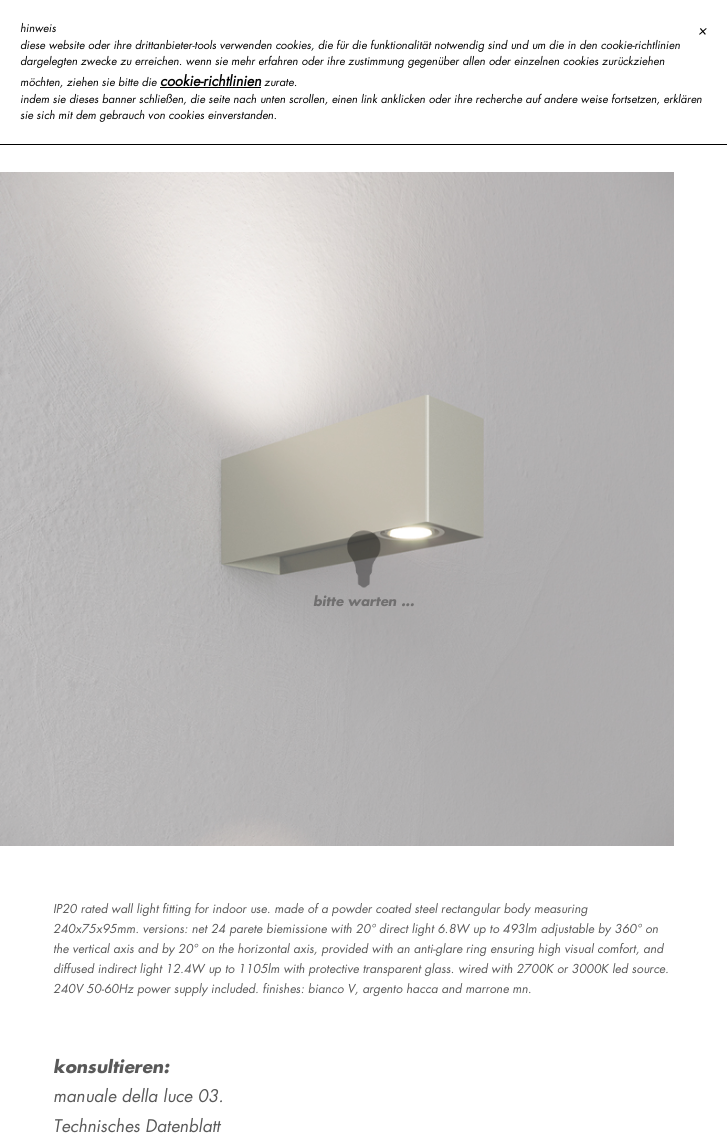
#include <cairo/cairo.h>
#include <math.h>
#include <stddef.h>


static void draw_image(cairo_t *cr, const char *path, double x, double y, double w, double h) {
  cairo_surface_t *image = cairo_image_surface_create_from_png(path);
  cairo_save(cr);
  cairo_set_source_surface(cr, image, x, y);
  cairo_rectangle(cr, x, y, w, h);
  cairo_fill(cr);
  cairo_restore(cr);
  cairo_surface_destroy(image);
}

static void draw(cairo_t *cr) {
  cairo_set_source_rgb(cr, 1, 1, 1);
  cairo_paint(cr);
  cairo_set_source_rgb(cr, 0, 0, 0);
  cairo_rectangle(cr, 0, 144, 727, 1);
  cairo_fill(cr);
  cairo_rectangle(cr, 160, 87, 101, 1);
  cairo_fill(cr);
  draw_image(cr, "images/2.png", 0, 172, 674, 674);
  draw_image(cr, "images/1.png", 347, 530, 34, 58);
  cairo_select_font_face(cr, "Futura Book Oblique", CAIRO_FONT_SLANT_NORMAL, CAIRO_FONT_WEIGHT_NORMAL);
  cairo_set_font_size(cr, 11);
  cairo_move_to(cr, 20, 32);
  cairo_show_text(cr, "hinweis");
  cairo_move_to(cr, 20, 49);
  cairo_show_text(cr, "diese website oder ihre drittanbieter-tools verwenden cookies, die für die funktionalität notwendig sind und um die in den cookie-richtlinien");
  cairo_move_to(cr, 20, 65);
  cairo_show_text(cr, "dargelegten zwecke zu erreichen. wenn sie mehr erfahren oder ihre zustimmung gegenüber allen oder einzelnen cookies zurückziehen");
  cairo_move_to(cr, 20, 86);
  cairo_show_text(cr, "möchten, ziehen sie bitte die");
  cairo_select_font_face(cr, "Futura Book Oblique", CAIRO_FONT_SLANT_NORMAL, CAIRO_FONT_WEIGHT_BOLD);
  cairo_set_font_size(cr, 14);
  cairo_move_to(cr, 160, 86);
  cairo_show_text(cr, "cookie-richtlinien");
  cairo_select_font_face(cr, "Futura Book Oblique", CAIRO_FONT_SLANT_NORMAL, CAIRO_FONT_WEIGHT_NORMAL);
  cairo_set_font_size(cr, 11);
  cairo_move_to(cr, 264, 86);
  cairo_show_text(cr, "zurate.");
  cairo_move_to(cr, 20, 103);
  cairo_show_text(cr, "indem sie dieses banner schließen, die seite nach unten scrollen, einen link anklicken oder ihre recherche auf andere weise fortsetzen, erklären");
  cairo_move_to(cr, 20, 119);
  cairo_show_text(cr, "sie sich mit dem gebrauch von cookies einverstanden.");
  cairo_set_font_size(cr, 14);
  cairo_move_to(cr, 698, 35);
  cairo_show_text(cr, "×");
  cairo_select_font_face(cr, "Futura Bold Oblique", CAIRO_FONT_SLANT_NORMAL, CAIRO_FONT_WEIGHT_BOLD);
  cairo_set_font_size(cr, 13);
  cairo_set_source_rgb(cr, 112 / 255.0, 111 / 255.0, 111 / 255.0);
  cairo_move_to(cr, 313, 606);
  cairo_show_text(cr, "bitte warten ...");
  cairo_select_font_face(cr, "Futura Book Oblique", CAIRO_FONT_SLANT_NORMAL, CAIRO_FONT_WEIGHT_NORMAL);
  cairo_set_font_size(cr, 12);
  cairo_set_source_rgb(cr, 89 / 255.0, 89 / 255.0, 89 / 255.0);
  cairo_move_to(cr, 53, 913);
  cairo_show_text(cr, "IP20 rated wall light fitting for indoor use. made of a powder coated steel rectangular body measuring");
  cairo_move_to(cr, 53, 933);
  cairo_show_text(cr, "240x75x95mm. versions: net 24 parete biemissione with 20° direct light 6.8W up to 493lm adjustable by 360° on");
  cairo_move_to(cr, 53, 953);
  cairo_show_text(cr, "the vertical axis and by 20° on the horizontal axis, provided with an anti-glare ring ensuring high visual comfort, and");
  cairo_move_to(cr, 53, 973);
  cairo_show_text(cr, "diffused indirect light 12.4W up to 1105lm with protective transparent glass. wired with 2700K or 3000K led source.");
  cairo_move_to(cr, 53, 993);
  cairo_show_text(cr, "240V 50-60Hz power supply included. finishes: bianco V, argento hacca and marrone mn.");
  cairo_select_font_face(cr, "Futura Bold Oblique", CAIRO_FONT_SLANT_NORMAL, CAIRO_FONT_WEIGHT_BOLD);
  cairo_set_font_size(cr, 17);
  cairo_move_to(cr, 53, 1073);
  cairo_show_text(cr, "konsultieren:");
  cairo_select_font_face(cr, "Futura Book Oblique", CAIRO_FONT_SLANT_NORMAL, CAIRO_FONT_WEIGHT_NORMAL);
  cairo_move_to(cr, 53, 1102);
  cairo_show_text(cr, "manuale della luce 03.");
  cairo_move_to(cr, 53, 1132);
  cairo_show_text(cr, "Technisches Datenblatt");
}

int main(void) {
  cairo_surface_t *surface = cairo_image_surface_create(CAIRO_FORMAT_RGB24, 727, 1140);
  cairo_t *cr = cairo_create(surface);
  cairo_font_options_t *options = cairo_font_options_create();
  cairo_font_options_set_hint_metrics(options, CAIRO_HINT_METRICS_OFF);
  cairo_font_options_set_hint_style(options, CAIRO_HINT_STYLE_NONE);
  cairo_set_font_options(cr, options);
  cairo_set_miter_limit(cr, 4);
  draw(cr);
  cairo_surface_write_to_png(surface, "out.png");
  cairo_font_options_destroy(options);
  cairo_destroy(cr);
  cairo_surface_destroy(surface);
  return 0;
}
